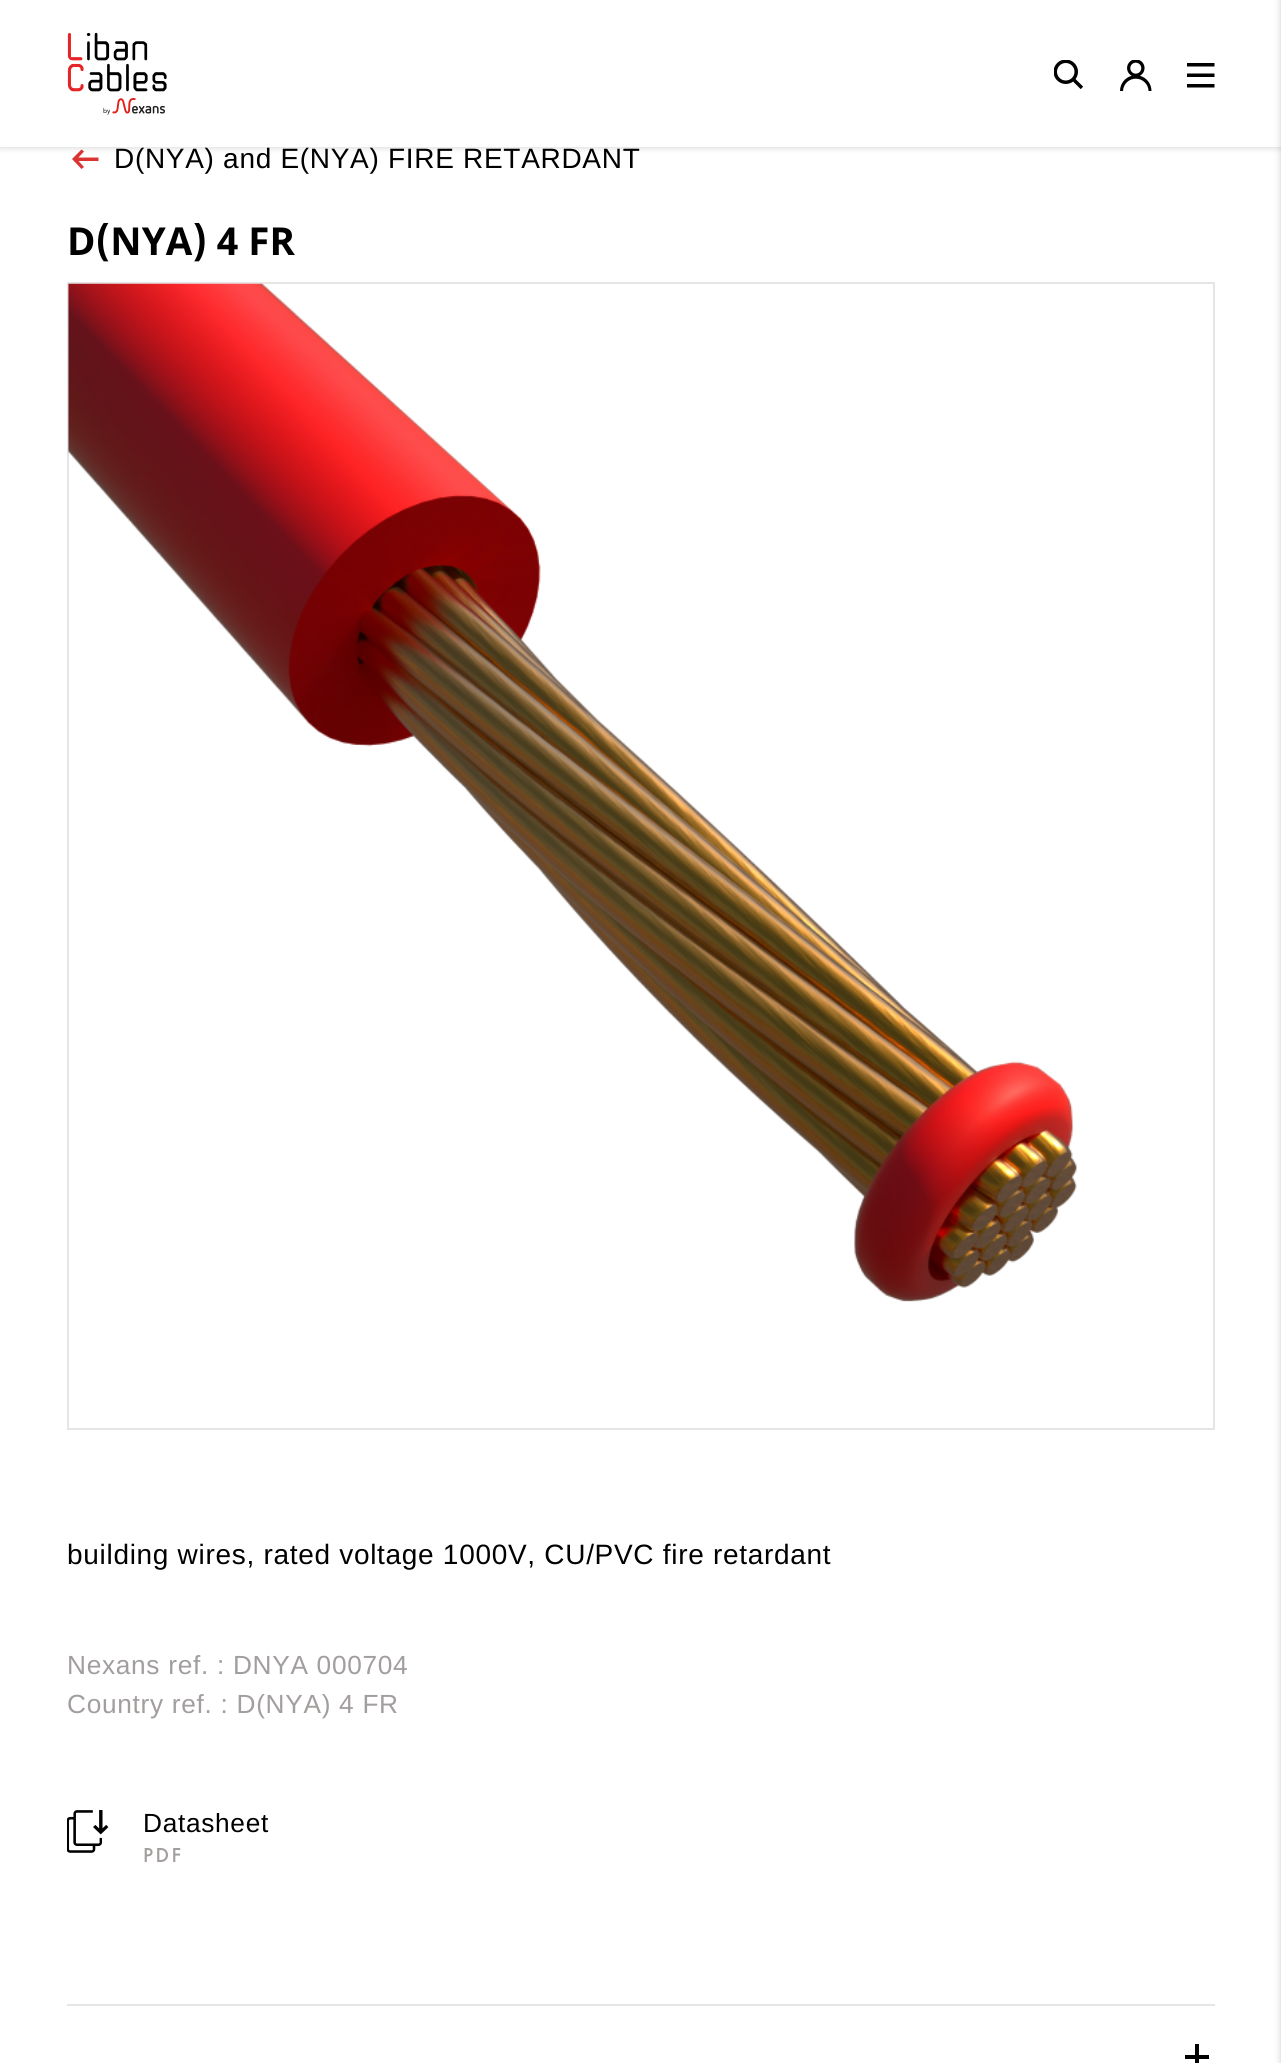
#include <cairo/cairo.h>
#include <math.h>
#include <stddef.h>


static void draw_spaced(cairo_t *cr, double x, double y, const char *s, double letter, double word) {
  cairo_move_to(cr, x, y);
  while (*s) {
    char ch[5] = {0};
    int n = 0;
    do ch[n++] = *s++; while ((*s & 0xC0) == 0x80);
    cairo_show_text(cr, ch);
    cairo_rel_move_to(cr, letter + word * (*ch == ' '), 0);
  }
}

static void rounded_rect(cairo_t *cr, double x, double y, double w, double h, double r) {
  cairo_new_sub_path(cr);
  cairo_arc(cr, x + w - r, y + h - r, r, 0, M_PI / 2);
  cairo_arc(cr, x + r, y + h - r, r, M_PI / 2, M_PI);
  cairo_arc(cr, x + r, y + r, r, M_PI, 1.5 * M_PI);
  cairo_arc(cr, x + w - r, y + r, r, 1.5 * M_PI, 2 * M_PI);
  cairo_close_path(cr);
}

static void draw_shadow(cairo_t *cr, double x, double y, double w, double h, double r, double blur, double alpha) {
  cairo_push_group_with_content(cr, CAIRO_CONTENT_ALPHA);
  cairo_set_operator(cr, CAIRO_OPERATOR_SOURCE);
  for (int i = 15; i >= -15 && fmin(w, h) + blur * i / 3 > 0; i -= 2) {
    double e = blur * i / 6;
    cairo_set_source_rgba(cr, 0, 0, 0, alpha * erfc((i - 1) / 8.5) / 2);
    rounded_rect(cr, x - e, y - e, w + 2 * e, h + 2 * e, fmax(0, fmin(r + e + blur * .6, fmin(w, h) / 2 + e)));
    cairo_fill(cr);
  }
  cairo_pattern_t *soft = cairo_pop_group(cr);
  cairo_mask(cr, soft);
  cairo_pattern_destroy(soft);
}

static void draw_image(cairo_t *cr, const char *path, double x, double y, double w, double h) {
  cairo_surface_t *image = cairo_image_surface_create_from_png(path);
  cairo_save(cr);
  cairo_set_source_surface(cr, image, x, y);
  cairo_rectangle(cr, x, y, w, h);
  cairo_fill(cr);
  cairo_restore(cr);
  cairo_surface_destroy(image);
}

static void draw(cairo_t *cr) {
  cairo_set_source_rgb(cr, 1, 1, 1);
  cairo_paint(cr);
  cairo_set_source_rgb(cr, 219 / 255.0, 51 / 255.0, 49 / 255.0);
  cairo_new_path(cr);
  cairo_move_to(cr, 78.5, 157.5);
  cairo_line_to(cr, 84, 151.5);
  cairo_line_to(cr, 81.5, 149.5);
  cairo_line_to(cr, 72, 159);
  cairo_line_to(cr, 81.5, 169);
  cairo_line_to(cr, 84, 167);
  cairo_line_to(cr, 78.5, 161);
  cairo_line_to(cr, 98.5, 161);
  cairo_line_to(cr, 98.5, 157.5);
  cairo_close_path(cr);
  cairo_fill(cr);
  cairo_set_source_rgb(cr, 0, 0, 0);
  draw_shadow(cr, 0, 0, 1281, 147, 0, 3.5, 0.2);
  cairo_set_source_rgb(cr, 1, 1, 1);
  cairo_rectangle(cr, 0, 0, 1281, 147);
  cairo_fill(cr);
  draw_image(cr, "images/1.png", 67, 32, 100, 83);
  draw_image(cr, "images/2.png", 1054, 60, 29, 29);
  draw_image(cr, "images/3.png", 1120, 60, 32, 31);
  draw_image(cr, "images/4.png", 1187, 63, 28, 25);
  cairo_rectangle(cr, 68, 283, 1146, 1146);
  cairo_set_source_rgb(cr, 229 / 255.0, 229 / 255.0, 229 / 255.0);
  cairo_stroke(cr);
  draw_image(cr, "images/5.png", 68, 283, 1009, 1019);
  draw_image(cr, "images/6.png", 67, 1810, 42, 43);
  cairo_rectangle(cr, 67, 2004, 1148, 2);
  cairo_fill(cr);
  cairo_set_source_rgb(cr, 0, 0, 0);
  cairo_rectangle(cr, 1195, 2044, 4, 19);
  cairo_fill(cr);
  cairo_rectangle(cr, 1185, 2055, 24, 4);
  cairo_fill(cr);
  cairo_set_source_rgb(cr, 0, 0, 0);
  draw_shadow(cr, 1281, 0, 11, 2063, 0, 3.5, 0.2);
  cairo_select_font_face(cr, "Liberation Sans", CAIRO_FONT_SLANT_NORMAL, CAIRO_FONT_WEIGHT_NORMAL);
  cairo_set_font_size(cr, 28);
  cairo_set_source_rgb(cr, 0, 0, 0);
  draw_spaced(cr, 114, 168, "D(NYA) and E(NYA) FIRE RETARDANT", 0.7, 0);
  cairo_select_font_face(cr, "Noto Sans", CAIRO_FONT_SLANT_NORMAL, CAIRO_FONT_WEIGHT_BOLD);
  cairo_set_font_size(cr, 38.5);
  cairo_move_to(cr, 67, 255);
  cairo_show_text(cr, "D(NYA) 4 FR");
  cairo_select_font_face(cr, "Liberation Sans", CAIRO_FONT_SLANT_NORMAL, CAIRO_FONT_WEIGHT_NORMAL);
  cairo_set_font_size(cr, 28);
  draw_spaced(cr, 67, 1564, "building wires, rated voltage 1000V, CU/PVC fire retardant", 0.7, 0);
  cairo_set_font_size(cr, 26.25);
  cairo_set_source_rgb(cr, 163 / 255.0, 158 / 255.0, 158 / 255.0);
  draw_spaced(cr, 67, 1674, "Nexans ref. : DNYA 000704", 0.7, 0);
  draw_spaced(cr, 67, 1713, "Country ref. : D(NYA) 4 FR", 0.7, 0);
  cairo_set_source_rgb(cr, 0, 0, 0);
  draw_spaced(cr, 143, 1832, "Datasheet", 0.7, 0);
  cairo_select_font_face(cr, "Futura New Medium", CAIRO_FONT_SLANT_NORMAL, CAIRO_FONT_WEIGHT_NORMAL);
  cairo_set_font_size(cr, 21);
  cairo_set_source_rgb(cr, 163 / 255.0, 158 / 255.0, 158 / 255.0);
  draw_spaced(cr, 143, 1862, "PDF", 2.5, 0);
}

int main(void) {
  cairo_surface_t *surface = cairo_image_surface_create(CAIRO_FORMAT_RGB24, 1281, 2063);
  cairo_t *cr = cairo_create(surface);
  cairo_font_options_t *options = cairo_font_options_create();
  cairo_font_options_set_hint_metrics(options, CAIRO_HINT_METRICS_OFF);
  cairo_font_options_set_hint_style(options, CAIRO_HINT_STYLE_NONE);
  cairo_set_font_options(cr, options);
  cairo_set_miter_limit(cr, 4);
  draw(cr);
  cairo_surface_write_to_png(surface, "out.png");
  cairo_font_options_destroy(options);
  cairo_destroy(cr);
  cairo_surface_destroy(surface);
  return 0;
}
